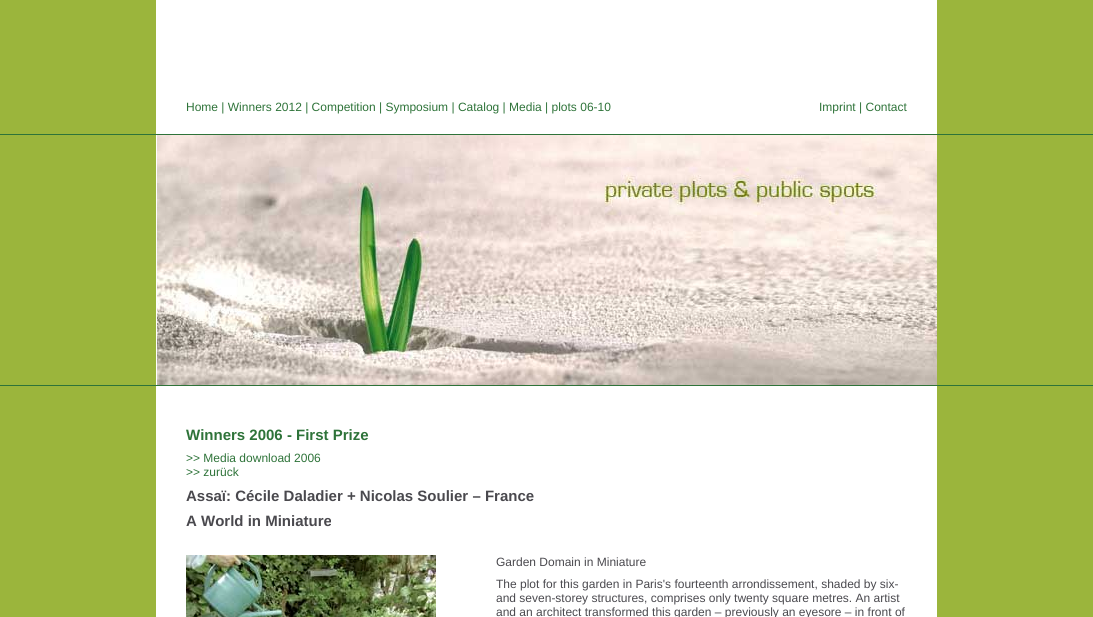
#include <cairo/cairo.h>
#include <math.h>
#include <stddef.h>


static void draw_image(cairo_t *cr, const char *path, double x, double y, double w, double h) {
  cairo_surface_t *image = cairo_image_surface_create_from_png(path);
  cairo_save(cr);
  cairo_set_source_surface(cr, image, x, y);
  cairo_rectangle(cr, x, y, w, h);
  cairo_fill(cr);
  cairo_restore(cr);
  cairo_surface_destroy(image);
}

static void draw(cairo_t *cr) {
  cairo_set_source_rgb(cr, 155 / 255.0, 181 / 255.0, 60 / 255.0);
  cairo_paint(cr);
  cairo_set_source_rgb(cr, 1, 1, 1);
  cairo_rectangle(cr, 156, 0, 781, 134);
  cairo_fill(cr);
  cairo_set_source_rgb(cr, 46 / 255.0, 115 / 255.0, 57 / 255.0);
  cairo_rectangle(cr, 0, 134, 1093, 1);
  cairo_fill(cr);
  cairo_rectangle(cr, 0, 385, 1093, 1);
  cairo_fill(cr);
  cairo_set_source_rgb(cr, 1, 1, 1);
  cairo_rectangle(cr, 156, 135, 1, 250);
  cairo_fill(cr);
  draw_image(cr, "images/1.png", 157, 135, 780, 250);
  cairo_rectangle(cr, 156, 386, 781, 169);
  cairo_fill(cr);
  cairo_rectangle(cr, 156, 555, 781, 62);
  cairo_fill(cr);
  draw_image(cr, "images/2.png", 186, 555, 250, 62);
  cairo_select_font_face(cr, "Liberation Sans", CAIRO_FONT_SLANT_NORMAL, CAIRO_FONT_WEIGHT_NORMAL);
  cairo_set_font_size(cr, 12);
  cairo_set_source_rgb(cr, 46 / 255.0, 115 / 255.0, 57 / 255.0);
  cairo_move_to(cr, 186, 111);
  cairo_show_text(cr, "Home | Winners 2012 | Competition | Symposium | Catalog | Media | plots 06-10");
  cairo_move_to(cr, 819, 111);
  cairo_show_text(cr, "Imprint | Contact");
  cairo_select_font_face(cr, "Liberation Sans", CAIRO_FONT_SLANT_NORMAL, CAIRO_FONT_WEIGHT_BOLD);
  cairo_set_font_size(cr, 15);
  cairo_move_to(cr, 186, 440);
  cairo_show_text(cr, "Winners 2006 - First Prize");
  cairo_select_font_face(cr, "Liberation Sans", CAIRO_FONT_SLANT_NORMAL, CAIRO_FONT_WEIGHT_NORMAL);
  cairo_set_font_size(cr, 12);
  cairo_move_to(cr, 186, 462);
  cairo_show_text(cr, ">> Media download 2006");
  cairo_move_to(cr, 186, 476);
  cairo_show_text(cr, ">> zurück");
  cairo_select_font_face(cr, "Liberation Sans", CAIRO_FONT_SLANT_NORMAL, CAIRO_FONT_WEIGHT_BOLD);
  cairo_set_font_size(cr, 15);
  cairo_set_source_rgb(cr, 74 / 255.0, 73 / 255.0, 78 / 255.0);
  cairo_move_to(cr, 186, 501);
  cairo_show_text(cr, "Assaï: Cécile Daladier + Nicolas Soulier – France");
  cairo_move_to(cr, 186, 526);
  cairo_show_text(cr, "A World in Miniature");
  cairo_select_font_face(cr, "Liberation Sans", CAIRO_FONT_SLANT_NORMAL, CAIRO_FONT_WEIGHT_NORMAL);
  cairo_set_font_size(cr, 12);
  cairo_move_to(cr, 496, 566);
  cairo_show_text(cr, "Garden Domain in Miniature");
  cairo_move_to(cr, 496, 588);
  cairo_show_text(cr, "The plot for this garden in Paris's fourteenth arrondissement, shaded by six-");
  cairo_move_to(cr, 496, 602);
  cairo_show_text(cr, "and seven-storey structures, comprises only twenty square metres. An artist");
  cairo_move_to(cr, 496, 616);
  cairo_show_text(cr, "and an architect transformed this garden – previously an eyesore – in front of");
}

int main(void) {
  cairo_surface_t *surface = cairo_image_surface_create(CAIRO_FORMAT_RGB24, 1093, 617);
  cairo_t *cr = cairo_create(surface);
  cairo_font_options_t *options = cairo_font_options_create();
  cairo_font_options_set_hint_metrics(options, CAIRO_HINT_METRICS_OFF);
  cairo_font_options_set_hint_style(options, CAIRO_HINT_STYLE_NONE);
  cairo_set_font_options(cr, options);
  cairo_set_miter_limit(cr, 4);
  draw(cr);
  cairo_surface_write_to_png(surface, "out.png");
  cairo_font_options_destroy(options);
  cairo_destroy(cr);
  cairo_surface_destroy(surface);
  return 0;
}
